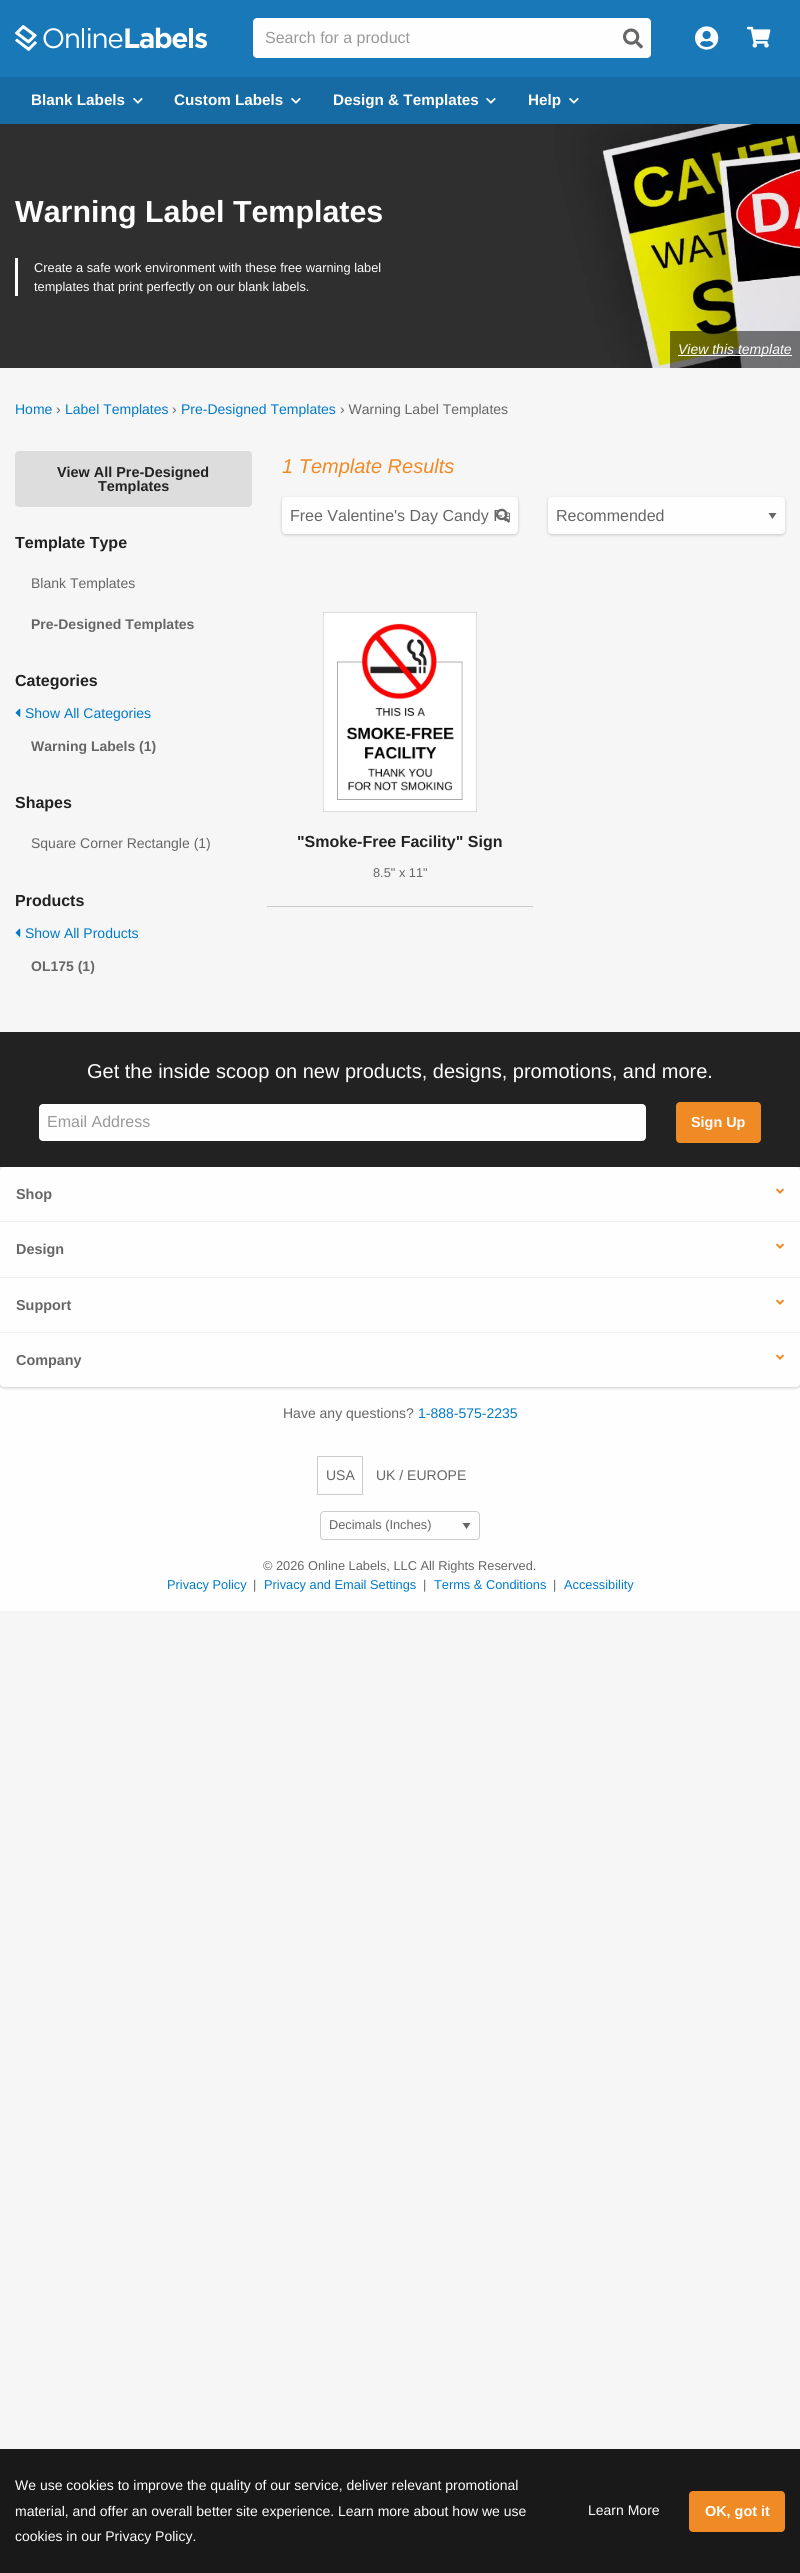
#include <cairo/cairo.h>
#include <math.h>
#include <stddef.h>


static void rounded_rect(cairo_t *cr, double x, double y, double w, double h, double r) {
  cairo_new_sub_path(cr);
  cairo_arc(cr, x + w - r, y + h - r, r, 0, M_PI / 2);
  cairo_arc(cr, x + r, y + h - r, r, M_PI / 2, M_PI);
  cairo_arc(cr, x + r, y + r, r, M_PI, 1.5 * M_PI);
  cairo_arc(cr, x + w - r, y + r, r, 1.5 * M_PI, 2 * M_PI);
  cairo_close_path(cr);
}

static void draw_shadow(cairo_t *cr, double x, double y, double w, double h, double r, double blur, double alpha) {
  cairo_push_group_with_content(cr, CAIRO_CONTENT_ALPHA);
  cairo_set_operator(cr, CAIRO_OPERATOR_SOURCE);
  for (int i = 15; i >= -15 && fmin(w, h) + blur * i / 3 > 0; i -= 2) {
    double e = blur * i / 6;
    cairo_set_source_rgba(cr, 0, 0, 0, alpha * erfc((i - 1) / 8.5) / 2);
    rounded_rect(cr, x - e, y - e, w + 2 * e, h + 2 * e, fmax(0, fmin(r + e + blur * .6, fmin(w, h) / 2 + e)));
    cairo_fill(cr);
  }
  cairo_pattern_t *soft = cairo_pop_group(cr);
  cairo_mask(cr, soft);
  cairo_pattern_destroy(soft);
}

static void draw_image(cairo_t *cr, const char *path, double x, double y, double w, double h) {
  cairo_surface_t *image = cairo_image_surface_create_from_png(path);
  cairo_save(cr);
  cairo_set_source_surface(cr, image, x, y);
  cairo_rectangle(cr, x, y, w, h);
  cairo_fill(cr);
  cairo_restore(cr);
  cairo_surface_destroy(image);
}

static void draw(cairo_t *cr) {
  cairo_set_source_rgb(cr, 246 / 255.0, 246 / 255.0, 246 / 255.0);
  cairo_paint(cr);
  cairo_set_source_rgb(cr, 25 / 255.0, 120 / 255.0, 184 / 255.0);
  cairo_rectangle(cr, 0, 0, 800, 77);
  cairo_fill(cr);
  draw_image(cr, "images/1.png", 15, 25, 192, 26);
  cairo_set_source_rgb(cr, 254 / 255.0, 254 / 255.0, 254 / 255.0);
  rounded_rect(cr, 253, 18, 398, 40, 4);
  cairo_fill(cr);
  draw_image(cr, "images/2.png", 623, 28, 20, 21);
  draw_image(cr, "images/3.png", 695, 26, 24, 24);
  draw_image(cr, "images/4.png", 747, 26, 24, 22);
  cairo_set_source_rgb(cr, 23 / 255.0, 107 / 255.0, 164 / 255.0);
  cairo_rectangle(cr, 0, 77, 800, 47);
  cairo_fill(cr);
  draw_image(cr, "images/5.png", 133, 98, 10, 6);
  draw_image(cr, "images/5.png", 291, 98, 10, 6);
  draw_image(cr, "images/5.png", 486, 98, 10, 6);
  draw_image(cr, "images/5.png", 569, 98, 10, 6);
  draw_image(cr, "images/6.png", 0, 124, 800, 244);
  cairo_set_source_rgb(cr, 254 / 255.0, 254 / 255.0, 254 / 255.0);
  cairo_rectangle(cr, 15, 258, 3, 38);
  cairo_fill(cr);
  cairo_set_source_rgba(cr, 0, 0, 0, 0.5);
  cairo_rectangle(cr, 670, 331, 130, 37);
  cairo_fill(cr);
  cairo_set_source_rgb(cr, 1, 1, 1);
  cairo_rectangle(cr, 678, 355, 114, 1);
  cairo_fill(cr);
  cairo_set_source_rgb(cr, 221 / 255.0, 221 / 255.0, 221 / 255.0);
  rounded_rect(cr, 15, 451, 237, 56, 4);
  cairo_fill(cr);
  draw_image(cr, "images/7.png", 15, 708, 6, 9);
  draw_image(cr, "images/7.png", 15, 928, 6, 9);
  cairo_set_source_rgb(cr, 0, 0, 0);
  draw_shadow(cr, 282, 498, 236, 37, 4, 1.5, 0.2);
  cairo_set_source_rgb(cr, 254 / 255.0, 254 / 255.0, 254 / 255.0);
  rounded_rect(cr, 282, 497, 236, 37, 4);
  cairo_fill(cr);
  cairo_set_source_rgb(cr, 0, 0, 0);
  draw_shadow(cr, 548, 498, 237, 37, 4, 1.5, 0.2);
  cairo_set_source_rgb(cr, 254 / 255.0, 254 / 255.0, 254 / 255.0);
  rounded_rect(cr, 548, 497, 237, 37, 4);
  cairo_fill(cr);
  cairo_set_source_rgb(cr, 102 / 255.0, 102 / 255.0, 102 / 255.0);
  cairo_new_path(cr);
  cairo_move_to(cr, 768.5, 513);
  cairo_line_to(cr, 776.5, 513);
  cairo_line_to(cr, 772.5, 519);
  cairo_close_path(cr);
  cairo_fill(cr);
  cairo_set_source_rgb(cr, 204 / 255.0, 204 / 255.0, 204 / 255.0);
  cairo_rectangle(cr, 267, 906, 266, 1);
  cairo_fill(cr);
  draw_image(cr, "images/9.png", 322, 612, 155, 200);
  cairo_set_source_rgb(cr, 34 / 255.0, 34 / 255.0, 34 / 255.0);
  cairo_rectangle(cr, 0, 1032, 800, 135);
  cairo_fill(cr);
  cairo_set_source_rgb(cr, 254 / 255.0, 254 / 255.0, 254 / 255.0);
  rounded_rect(cr, 39, 1104, 607, 37, 4);
  cairo_fill(cr);
  cairo_set_source_rgb(cr, 240 / 255.0, 138 / 255.0, 36 / 255.0);
  rounded_rect(cr, 676, 1102, 85, 41, 4);
  cairo_fill(cr);
  cairo_set_source_rgb(cr, 254 / 255.0, 254 / 255.0, 254 / 255.0);
  cairo_rectangle(cr, 0, 1387, 800, 224);
  cairo_fill(cr);
  cairo_set_source_rgb(cr, 0, 0, 0);
  draw_shadow(cr, 0, 1168, 800, 220, 4, 1.5, 0.2);
  cairo_set_source_rgb(cr, 254 / 255.0, 254 / 255.0, 254 / 255.0);
  rounded_rect(cr, 0, 1167, 800, 220, 4);
  cairo_fill(cr);
  draw_image(cr, "images/10.png", 776, 1188, 8, 6);
  cairo_set_source_rgb(cr, 238 / 255.0, 238 / 255.0, 238 / 255.0);
  cairo_rectangle(cr, 0, 1221, 800, 1);
  cairo_fill(cr);
  draw_image(cr, "images/10.png", 776, 1243, 8, 6);
  cairo_rectangle(cr, 0, 1277, 800, 1);
  cairo_fill(cr);
  draw_image(cr, "images/10.png", 776, 1299, 8, 6);
  cairo_rectangle(cr, 0, 1332, 800, 1);
  cairo_fill(cr);
  draw_image(cr, "images/10.png", 776, 1354, 8, 6);
  cairo_rectangle(cr, 317.5, 1456.5, 45, 38);
  cairo_set_source_rgb(cr, 204 / 255.0, 204 / 255.0, 204 / 255.0);
  cairo_set_line_width(cr, 1);
  cairo_stroke(cr);
  cairo_set_source_rgb(cr, 102 / 255.0, 102 / 255.0, 102 / 255.0);
  cairo_new_path(cr);
  cairo_move_to(cr, 462.5, 1523);
  cairo_line_to(cr, 470.5, 1523);
  cairo_line_to(cr, 466.5, 1529);
  cairo_close_path(cr);
  cairo_fill(cr);
  rounded_rect(cr, 320.5, 1511.5, 159, 28, 3.5);
  cairo_set_source_rgb(cr, 204 / 255.0, 204 / 255.0, 204 / 255.0);
  cairo_stroke(cr);
  cairo_set_source_rgb(cr, 25 / 255.0, 25 / 255.0, 25 / 255.0);
  cairo_rectangle(cr, 0, 2449, 800, 124);
  cairo_fill(cr);
  cairo_set_source_rgb(cr, 240 / 255.0, 138 / 255.0, 36 / 255.0);
  rounded_rect(cr, 689, 2491, 96, 41, 4);
  cairo_fill(cr);
  cairo_select_font_face(cr, "Liberation Sans", CAIRO_FONT_SLANT_NORMAL, CAIRO_FONT_WEIGHT_NORMAL);
  cairo_set_font_size(cr, 16);
  cairo_set_source_rgb(cr, 153 / 255.0, 153 / 255.0, 153 / 255.0);
  cairo_move_to(cr, 265, 43);
  cairo_show_text(cr, "Search for a product");
  cairo_select_font_face(cr, "Liberation Sans", CAIRO_FONT_SLANT_NORMAL, CAIRO_FONT_WEIGHT_BOLD);
  cairo_set_font_size(cr, 15.25);
  cairo_set_source_rgb(cr, 254 / 255.0, 254 / 255.0, 254 / 255.0);
  cairo_move_to(cr, 31, 105);
  cairo_show_text(cr, "Blank Labels");
  cairo_move_to(cr, 174, 105);
  cairo_show_text(cr, "Custom Labels");
  cairo_move_to(cr, 333, 105);
  cairo_show_text(cr, "Design & Templates");
  cairo_move_to(cr, 528, 105);
  cairo_show_text(cr, "Help");
  cairo_set_font_size(cr, 30.4);
  cairo_move_to(cr, 15, 222);
  cairo_show_text(cr, "Warning Label Templates");
  cairo_select_font_face(cr, "Liberation Sans", CAIRO_FONT_SLANT_NORMAL, CAIRO_FONT_WEIGHT_NORMAL);
  cairo_set_font_size(cr, 12.8);
  cairo_move_to(cr, 34, 272);
  cairo_show_text(cr, "Create a safe work environment with these free warning label");
  cairo_move_to(cr, 34, 291);
  cairo_show_text(cr, "templates that print perfectly on our blank labels.");
  cairo_select_font_face(cr, "Liberation Sans", CAIRO_FONT_SLANT_ITALIC, CAIRO_FONT_WEIGHT_NORMAL);
  cairo_set_font_size(cr, 14);
  cairo_move_to(cr, 678, 354);
  cairo_show_text(cr, "View this template");
  cairo_select_font_face(cr, "Liberation Sans", CAIRO_FONT_SLANT_NORMAL, CAIRO_FONT_WEIGHT_NORMAL);
  cairo_set_source_rgb(cr, 0, 122 / 255.0, 201 / 255.0);
  cairo_move_to(cr, 15, 414);
  cairo_show_text(cr, "Home");
  cairo_set_source_rgb(cr, 102 / 255.0, 102 / 255.0, 102 / 255.0);
  cairo_move_to(cr, 56, 414);
  cairo_show_text(cr, "›");
  cairo_set_source_rgb(cr, 0, 122 / 255.0, 201 / 255.0);
  cairo_move_to(cr, 65, 414);
  cairo_show_text(cr, "Label Templates");
  cairo_set_source_rgb(cr, 102 / 255.0, 102 / 255.0, 102 / 255.0);
  cairo_move_to(cr, 172, 414);
  cairo_show_text(cr, "›");
  cairo_set_source_rgb(cr, 0, 122 / 255.0, 201 / 255.0);
  cairo_move_to(cr, 181, 414);
  cairo_show_text(cr, "Pre-Designed Templates");
  cairo_set_source_rgb(cr, 102 / 255.0, 102 / 255.0, 102 / 255.0);
  cairo_move_to(cr, 340, 414);
  cairo_show_text(cr, "› Warning Label Templates");
  cairo_select_font_face(cr, "Liberation Sans", CAIRO_FONT_SLANT_NORMAL, CAIRO_FONT_WEIGHT_BOLD);
  cairo_set_font_size(cr, 14.4);
  cairo_set_source_rgb(cr, 34 / 255.0, 34 / 255.0, 34 / 255.0);
  cairo_move_to(cr, 57, 477);
  cairo_show_text(cr, "View All Pre-Designed");
  cairo_move_to(cr, 98, 491);
  cairo_show_text(cr, "Templates");
  cairo_set_font_size(cr, 16);
  cairo_move_to(cr, 15, 548);
  cairo_show_text(cr, "Template Type");
  cairo_select_font_face(cr, "Liberation Sans", CAIRO_FONT_SLANT_NORMAL, CAIRO_FONT_WEIGHT_NORMAL);
  cairo_set_font_size(cr, 14);
  cairo_set_source_rgb(cr, 102 / 255.0, 102 / 255.0, 102 / 255.0);
  cairo_move_to(cr, 31, 588);
  cairo_show_text(cr, "Blank Templates");
  cairo_select_font_face(cr, "Liberation Sans", CAIRO_FONT_SLANT_NORMAL, CAIRO_FONT_WEIGHT_BOLD);
  cairo_move_to(cr, 31, 629);
  cairo_show_text(cr, "Pre-Designed Templates");
  cairo_set_font_size(cr, 16);
  cairo_set_source_rgb(cr, 34 / 255.0, 34 / 255.0, 34 / 255.0);
  cairo_move_to(cr, 15, 686);
  cairo_show_text(cr, "Categories");
  cairo_select_font_face(cr, "Liberation Sans", CAIRO_FONT_SLANT_NORMAL, CAIRO_FONT_WEIGHT_NORMAL);
  cairo_set_font_size(cr, 14);
  cairo_set_source_rgb(cr, 0, 122 / 255.0, 201 / 255.0);
  cairo_move_to(cr, 25, 718);
  cairo_show_text(cr, "Show All Categories");
  cairo_select_font_face(cr, "Liberation Sans", CAIRO_FONT_SLANT_NORMAL, CAIRO_FONT_WEIGHT_BOLD);
  cairo_set_source_rgb(cr, 102 / 255.0, 102 / 255.0, 102 / 255.0);
  cairo_move_to(cr, 31, 751);
  cairo_show_text(cr, "Warning Labels (1)");
  cairo_set_font_size(cr, 16);
  cairo_set_source_rgb(cr, 34 / 255.0, 34 / 255.0, 34 / 255.0);
  cairo_move_to(cr, 15, 808);
  cairo_show_text(cr, "Shapes");
  cairo_select_font_face(cr, "Liberation Sans", CAIRO_FONT_SLANT_NORMAL, CAIRO_FONT_WEIGHT_NORMAL);
  cairo_set_font_size(cr, 14);
  cairo_set_source_rgb(cr, 102 / 255.0, 102 / 255.0, 102 / 255.0);
  cairo_move_to(cr, 31, 848);
  cairo_show_text(cr, "Square Corner Rectangle (1)");
  cairo_select_font_face(cr, "Liberation Sans", CAIRO_FONT_SLANT_NORMAL, CAIRO_FONT_WEIGHT_BOLD);
  cairo_set_font_size(cr, 16);
  cairo_set_source_rgb(cr, 34 / 255.0, 34 / 255.0, 34 / 255.0);
  cairo_move_to(cr, 15, 906);
  cairo_show_text(cr, "Products");
  cairo_select_font_face(cr, "Liberation Sans", CAIRO_FONT_SLANT_NORMAL, CAIRO_FONT_WEIGHT_NORMAL);
  cairo_set_font_size(cr, 14);
  cairo_set_source_rgb(cr, 0, 122 / 255.0, 201 / 255.0);
  cairo_move_to(cr, 25, 938);
  cairo_show_text(cr, "Show All Products");
  cairo_select_font_face(cr, "Liberation Sans", CAIRO_FONT_SLANT_NORMAL, CAIRO_FONT_WEIGHT_BOLD);
  cairo_set_source_rgb(cr, 102 / 255.0, 102 / 255.0, 102 / 255.0);
  cairo_move_to(cr, 31, 971);
  cairo_show_text(cr, "OL175 (1)");
  cairo_select_font_face(cr, "Liberation Sans", CAIRO_FONT_SLANT_ITALIC, CAIRO_FONT_WEIGHT_NORMAL);
  cairo_set_font_size(cr, 20);
  cairo_set_source_rgb(cr, 240 / 255.0, 138 / 255.0, 36 / 255.0);
  cairo_move_to(cr, 282, 473);
  cairo_show_text(cr, "1 Template Results");
  cairo_save(cr);
  cairo_rectangle(cr, 290, 507, 220, 18);
  cairo_clip(cr);
  cairo_select_font_face(cr, "Liberation Sans", CAIRO_FONT_SLANT_NORMAL, CAIRO_FONT_WEIGHT_NORMAL);
  cairo_set_font_size(cr, 16);
  cairo_set_source_rgb(cr, 102 / 255.0, 102 / 255.0, 102 / 255.0);
  cairo_move_to(cr, 290, 521);
  cairo_show_text(cr, "Free Valentine's Day Candy Fa");
  cairo_restore(cr);
  draw_image(cr, "images/8.png", 496, 508, 14, 15);
  cairo_select_font_face(cr, "Liberation Sans", CAIRO_FONT_SLANT_NORMAL, CAIRO_FONT_WEIGHT_NORMAL);
  cairo_set_font_size(cr, 16);
  cairo_set_source_rgb(cr, 102 / 255.0, 102 / 255.0, 102 / 255.0);
  cairo_move_to(cr, 556, 521);
  cairo_show_text(cr, "Recommended");
  cairo_select_font_face(cr, "Liberation Sans", CAIRO_FONT_SLANT_NORMAL, CAIRO_FONT_WEIGHT_BOLD);
  cairo_set_source_rgb(cr, 34 / 255.0, 34 / 255.0, 34 / 255.0);
  cairo_move_to(cr, 297, 847);
  cairo_show_text(cr, "\"Smoke-Free Facility\" Sign");
  cairo_select_font_face(cr, "Liberation Sans", CAIRO_FONT_SLANT_NORMAL, CAIRO_FONT_WEIGHT_NORMAL);
  cairo_set_font_size(cr, 12.8);
  cairo_set_source_rgb(cr, 102 / 255.0, 102 / 255.0, 102 / 255.0);
  cairo_move_to(cr, 373, 877);
  cairo_show_text(cr, "8.5\" x 11\"");
  cairo_set_font_size(cr, 20);
  cairo_set_source_rgb(cr, 254 / 255.0, 254 / 255.0, 254 / 255.0);
  cairo_move_to(cr, 87, 1078);
  cairo_show_text(cr, "Get the inside scoop on new products, designs, promotions, and more.");
  cairo_set_font_size(cr, 16);
  cairo_set_source_rgb(cr, 153 / 255.0, 153 / 255.0, 153 / 255.0);
  cairo_move_to(cr, 47, 1127);
  cairo_show_text(cr, "Email Address");
  cairo_select_font_face(cr, "Liberation Sans", CAIRO_FONT_SLANT_NORMAL, CAIRO_FONT_WEIGHT_BOLD);
  cairo_set_font_size(cr, 14.4);
  cairo_set_source_rgb(cr, 254 / 255.0, 254 / 255.0, 254 / 255.0);
  cairo_move_to(cr, 691, 1127);
  cairo_show_text(cr, "Sign Up");
  cairo_set_source_rgb(cr, 102 / 255.0, 102 / 255.0, 102 / 255.0);
  cairo_move_to(cr, 16, 1199);
  cairo_show_text(cr, "Shop");
  cairo_move_to(cr, 16, 1254);
  cairo_show_text(cr, "Design");
  cairo_move_to(cr, 16, 1310);
  cairo_show_text(cr, "Support");
  cairo_move_to(cr, 16, 1365);
  cairo_show_text(cr, "Company");
  cairo_select_font_face(cr, "Liberation Sans", CAIRO_FONT_SLANT_NORMAL, CAIRO_FONT_WEIGHT_NORMAL);
  cairo_set_font_size(cr, 14);
  cairo_move_to(cr, 283, 1418);
  cairo_show_text(cr, "Have any questions?");
  cairo_set_source_rgb(cr, 0, 122 / 255.0, 201 / 255.0);
  cairo_move_to(cr, 418, 1418);
  cairo_show_text(cr, "1-888-575-2235");
  cairo_set_source_rgb(cr, 102 / 255.0, 102 / 255.0, 102 / 255.0);
  cairo_move_to(cr, 326, 1480);
  cairo_show_text(cr, "USA");
  cairo_move_to(cr, 376, 1480);
  cairo_show_text(cr, "UK / EUROPE");
  cairo_set_font_size(cr, 12.8);
  cairo_move_to(cr, 329, 1529);
  cairo_show_text(cr, "Decimals (Inches)");
  cairo_move_to(cr, 263, 1570);
  cairo_show_text(cr, "© 2026 Online Labels, LLC All Rights Reserved.");
  cairo_set_source_rgb(cr, 0, 122 / 255.0, 201 / 255.0);
  cairo_move_to(cr, 167, 1589);
  cairo_show_text(cr, "Privacy Policy");
  cairo_set_source_rgb(cr, 102 / 255.0, 102 / 255.0, 102 / 255.0);
  cairo_move_to(cr, 253, 1589);
  cairo_show_text(cr, "|");
  cairo_set_source_rgb(cr, 0, 122 / 255.0, 201 / 255.0);
  cairo_move_to(cr, 264, 1589);
  cairo_show_text(cr, "Privacy and Email Settings");
  cairo_set_source_rgb(cr, 102 / 255.0, 102 / 255.0, 102 / 255.0);
  cairo_move_to(cr, 423, 1589);
  cairo_show_text(cr, "|");
  cairo_set_source_rgb(cr, 0, 122 / 255.0, 201 / 255.0);
  cairo_move_to(cr, 434, 1589);
  cairo_show_text(cr, "Terms & Conditions");
  cairo_set_source_rgb(cr, 102 / 255.0, 102 / 255.0, 102 / 255.0);
  cairo_move_to(cr, 553, 1589);
  cairo_show_text(cr, "|");
  cairo_set_source_rgb(cr, 0, 122 / 255.0, 201 / 255.0);
  cairo_move_to(cr, 564, 1589);
  cairo_show_text(cr, "Accessibility");
  cairo_set_font_size(cr, 14);
  cairo_set_source_rgb(cr, 254 / 255.0, 254 / 255.0, 254 / 255.0);
  cairo_move_to(cr, 15, 2490);
  cairo_show_text(cr, "We use cookies to improve the quality of our service, deliver relevant promotional");
  cairo_move_to(cr, 15, 2516);
  cairo_show_text(cr, "material, and offer an overall better site experience. Learn more about how we use");
  cairo_move_to(cr, 15, 2541);
  cairo_show_text(cr, "cookies in our Privacy Policy.");
  cairo_move_to(cr, 588, 2515);
  cairo_show_text(cr, "Learn More");
  cairo_select_font_face(cr, "Liberation Sans", CAIRO_FONT_SLANT_NORMAL, CAIRO_FONT_WEIGHT_BOLD);
  cairo_set_font_size(cr, 14.4);
  cairo_move_to(cr, 705, 2516);
  cairo_show_text(cr, "OK, got it");
}

int main(void) {
  cairo_surface_t *surface = cairo_image_surface_create(CAIRO_FORMAT_RGB24, 800, 2573);
  cairo_t *cr = cairo_create(surface);
  cairo_font_options_t *options = cairo_font_options_create();
  cairo_font_options_set_hint_metrics(options, CAIRO_HINT_METRICS_OFF);
  cairo_font_options_set_hint_style(options, CAIRO_HINT_STYLE_NONE);
  cairo_set_font_options(cr, options);
  cairo_set_miter_limit(cr, 4);
  draw(cr);
  cairo_surface_write_to_png(surface, "out.png");
  cairo_font_options_destroy(options);
  cairo_destroy(cr);
  cairo_surface_destroy(surface);
  return 0;
}
